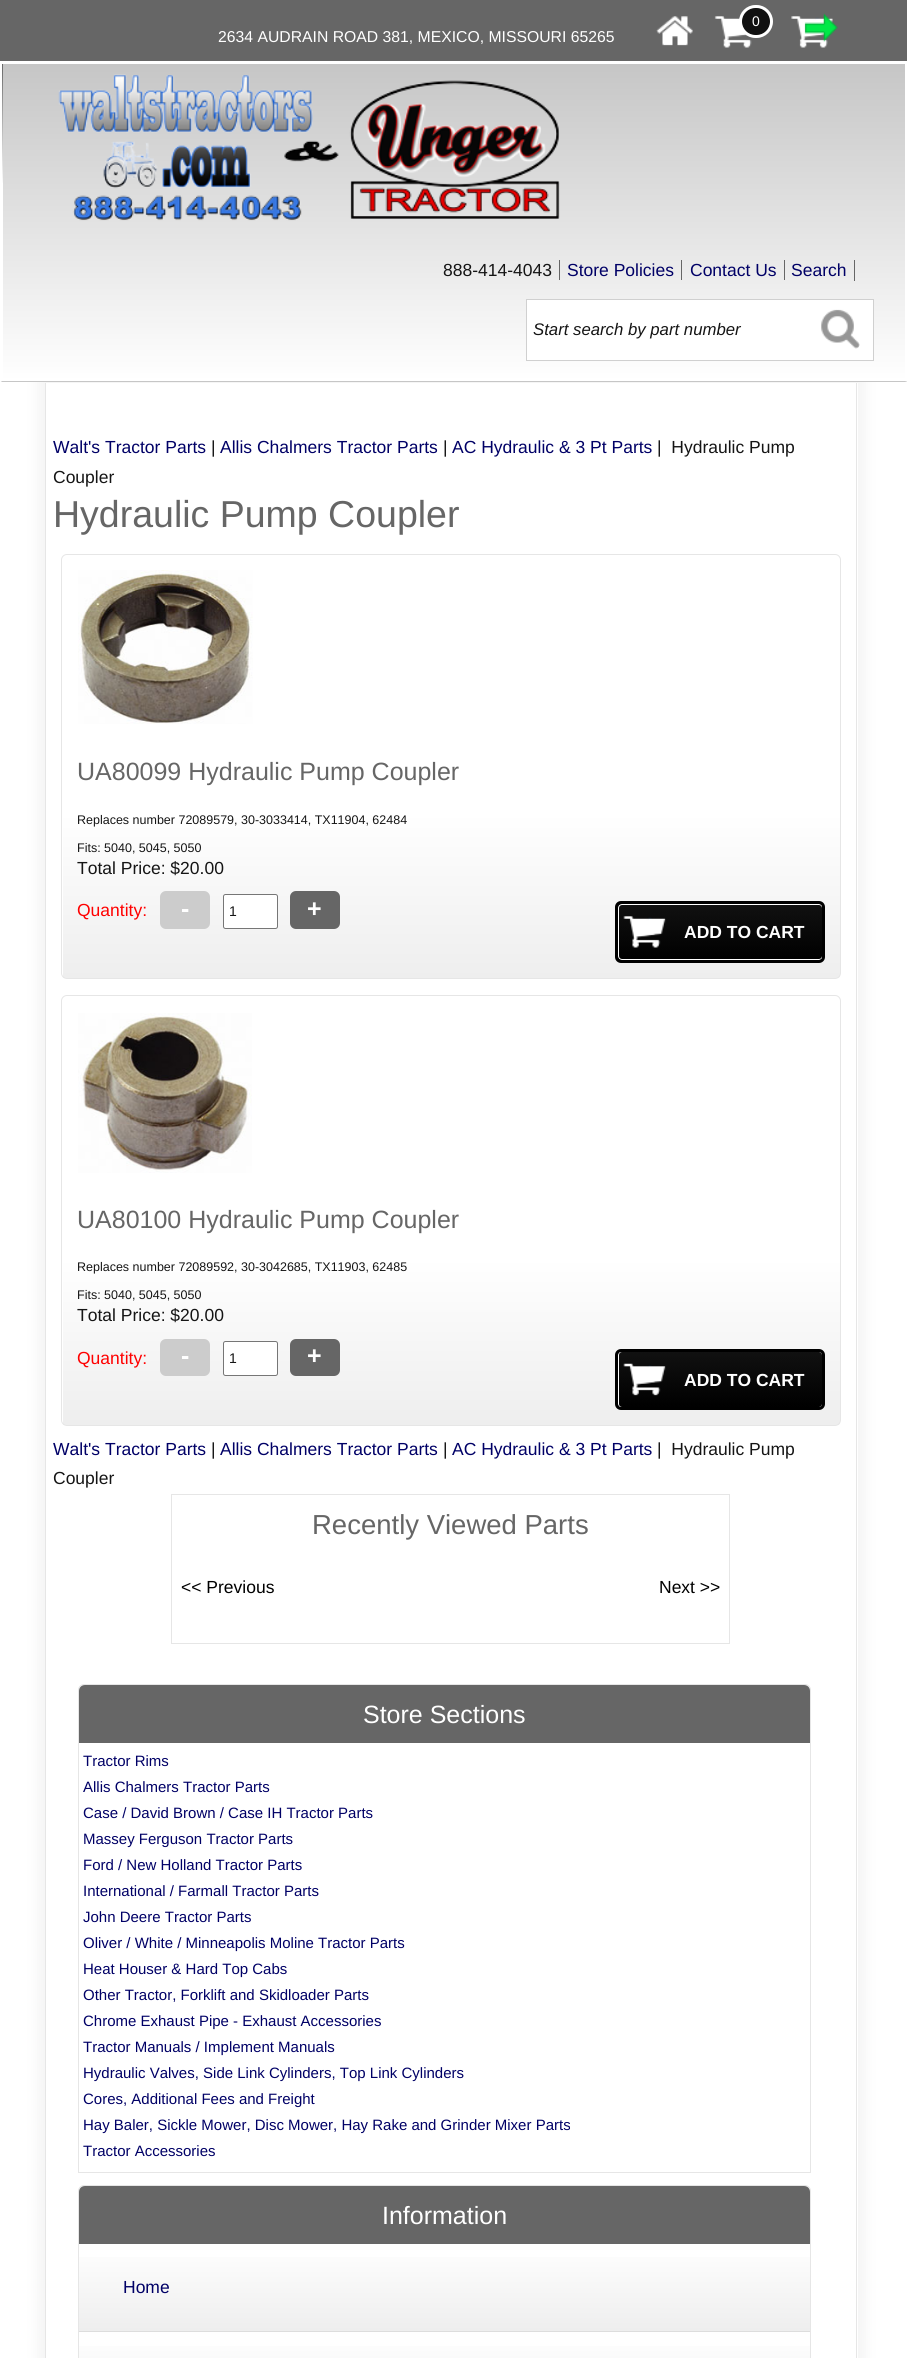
#include <cairo/cairo.h>
#include <math.h>
#include <stddef.h>


static void rounded_rect(cairo_t *cr, double x, double y, double w, double h, double r) {
  cairo_new_sub_path(cr);
  cairo_arc(cr, x + w - r, y + h - r, r, 0, M_PI / 2);
  cairo_arc(cr, x + r, y + h - r, r, M_PI / 2, M_PI);
  cairo_arc(cr, x + r, y + r, r, M_PI, 1.5 * M_PI);
  cairo_arc(cr, x + w - r, y + r, r, 1.5 * M_PI, 2 * M_PI);
  cairo_close_path(cr);
}

static void draw_shadow(cairo_t *cr, double x, double y, double w, double h, double r, double blur, double alpha) {
  cairo_push_group_with_content(cr, CAIRO_CONTENT_ALPHA);
  cairo_set_operator(cr, CAIRO_OPERATOR_SOURCE);
  for (int i = 15; i >= -15 && fmin(w, h) + blur * i / 3 > 0; i -= 2) {
    double e = blur * i / 6;
    cairo_set_source_rgba(cr, 0, 0, 0, alpha * erfc((i - 1) / 8.5) / 2);
    rounded_rect(cr, x - e, y - e, w + 2 * e, h + 2 * e, fmax(0, fmin(r + e + blur * .6, fmin(w, h) / 2 + e)));
    cairo_fill(cr);
  }
  cairo_pattern_t *soft = cairo_pop_group(cr);
  cairo_mask(cr, soft);
  cairo_pattern_destroy(soft);
}

static void draw_image(cairo_t *cr, const char *path, double x, double y, double w, double h) {
  cairo_surface_t *image = cairo_image_surface_create_from_png(path);
  cairo_save(cr);
  cairo_set_source_surface(cr, image, x, y);
  cairo_rectangle(cr, x, y, w, h);
  cairo_fill(cr);
  cairo_restore(cr);
  cairo_surface_destroy(image);
}

static void draw(cairo_t *cr) {
  cairo_pattern_t *gradient;
  cairo_set_source_rgb(cr, 1, 1, 1);
  cairo_paint(cr);
  gradient = cairo_pattern_create_linear(454, 0, 454, 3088);
  cairo_pattern_add_color_stop_rgba(gradient, 0.02, 102 / 255.0, 102 / 255.0, 102 / 255.0, 1);
  cairo_pattern_add_color_stop_rgba(gradient, 0.06, 1, 1, 1, 1);
  cairo_pattern_add_color_stop_rgba(gradient, 1, 1, 1, 1, 1);
  cairo_set_source(cr, gradient);
  cairo_pattern_destroy(gradient);
  cairo_rectangle(cr, 0, 0, 907, 183);
  cairo_fill(cr);
  draw_image(cr, "images/1.png", 656, 16, 37, 30);
  draw_image(cr, "images/2.png", 714, 16, 38, 32);
  cairo_set_source_rgb(cr, 17 / 255.0, 17 / 255.0, 17 / 255.0);
  rounded_rect(cr, 740.5, 6.5, 31, 30, 15);
  cairo_fill_preserve(cr);
  cairo_set_source_rgb(cr, 1, 1, 1);
  cairo_set_line_width(cr, 3);
  cairo_stroke(cr);
  draw_image(cr, "images/3.png", 791, 13, 47, 35);
  cairo_set_source_rgb(cr, 244 / 255.0, 244 / 255.0, 244 / 255.0);
  draw_shadow(cr, 38, 375, 827, 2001, 0, 6, 1);
  gradient = cairo_pattern_create_linear(454, 64, 454, 381);
  cairo_pattern_add_color_stop_rgba(gradient, 0, 198 / 255.0, 198 / 255.0, 198 / 255.0, 1);
  cairo_pattern_add_color_stop_rgba(gradient, 1, 1, 1, 1, 1);
  cairo_set_source(cr, gradient);
  cairo_pattern_destroy(gradient);
  cairo_rectangle(cr, 3, 64, 902, 317);
  cairo_fill(cr);
  cairo_set_source_rgb(cr, 1, 1, 1);
  cairo_rectangle(cr, 0, 61, 907, 3);
  cairo_fill(cr);
  cairo_new_path(cr);
  cairo_move_to(cr, 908, 61);
  cairo_line_to(cr, 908, 382);
  cairo_line_to(cr, 905, 381);
  cairo_line_to(cr, 905, 64);
  cairo_close_path(cr);
  cairo_fill(cr);
  cairo_set_source_rgb(cr, 198 / 255.0, 198 / 255.0, 198 / 255.0);
  cairo_new_path(cr);
  cairo_move_to(cr, 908, 382);
  cairo_line_to(cr, 0, 382);
  cairo_line_to(cr, 2, 381);
  cairo_line_to(cr, 905, 381);
  cairo_close_path(cr);
  cairo_fill(cr);
  cairo_set_source_rgb(cr, 1, 1, 1);
  cairo_new_path(cr);
  cairo_move_to(cr, 0, 382);
  cairo_line_to(cr, 0, 61);
  cairo_line_to(cr, 2, 64);
  cairo_line_to(cr, 2, 381);
  cairo_close_path(cr);
  cairo_fill(cr);
  draw_image(cr, "images/4.png", 58, 74, 502, 147);
  cairo_set_source_rgb(cr, 102 / 255.0, 102 / 255.0, 102 / 255.0);
  cairo_rectangle(cr, 854, 260, 1, 21);
  cairo_fill(cr);
  cairo_rectangle(cr, 559, 260, 1, 20);
  cairo_fill(cr);
  cairo_rectangle(cr, 681, 260, 1, 20);
  cairo_fill(cr);
  cairo_rectangle(cr, 784, 260, 1, 20);
  cairo_fill(cr);
  cairo_set_source_rgb(cr, 1, 1, 1);
  cairo_rectangle(cr, 526.5, 299.5, 347, 61);
  cairo_fill_preserve(cr);
  cairo_set_source_rgb(cr, 208 / 255.0, 208 / 255.0, 208 / 255.0);
  cairo_set_line_width(cr, 1);
  cairo_stroke(cr);
  draw_image(cr, "images/5.png", 821, 309, 39, 40);
  rounded_rect(cr, 818.5, 306.5, 42, 43, 5.5);
  cairo_set_source_rgb(cr, 1, 1, 1);
  cairo_stroke(cr);
  cairo_rectangle(cr, 46, 383, 812, 1975);
  cairo_fill(cr);
  cairo_set_source_rgb(cr, 230 / 255.0, 230 / 255.0, 230 / 255.0);
  cairo_rectangle(cr, 856, 383, 1, 1975);
  cairo_fill(cr);
  cairo_rectangle(cr, 45, 383, 1, 1975);
  cairo_fill(cr);
  cairo_save(cr);
  rounded_rect(cr, 61, 554, 780, 425, 6);
  cairo_clip(cr);
  gradient = cairo_pattern_create_linear(451, 555, 451, 978);
  cairo_pattern_add_color_stop_rgba(gradient, 0.61, 1, 1, 1, 1);
  cairo_pattern_add_color_stop_rgba(gradient, 1, 238 / 255.0, 238 / 255.0, 238 / 255.0, 1);
  cairo_set_source(cr, gradient);
  cairo_pattern_destroy(gradient);
  cairo_rectangle(cr, 63, 555, 777, 423);
  cairo_fill(cr);
  cairo_restore(cr);
  rounded_rect(cr, 61.5, 554.5, 779, 424, 5.5);
  cairo_stroke(cr);
  draw_image(cr, "images/6.png", 78, 570, 175, 154);
  cairo_set_source_rgb(cr, 204 / 255.0, 204 / 255.0, 204 / 255.0);
  rounded_rect(cr, 160, 891, 50, 38, 6);
  cairo_fill(cr);
  cairo_set_source_rgb(cr, 1, 1, 1);
  rounded_rect(cr, 223.5, 894.5, 54, 34, 2);
  cairo_fill_preserve(cr);
  cairo_set_source_rgb(cr, 118 / 255.0, 118 / 255.0, 118 / 255.0);
  cairo_stroke(cr);
  cairo_set_source_rgb(cr, 102 / 255.0, 102 / 255.0, 102 / 255.0);
  rounded_rect(cr, 290, 891, 50, 38, 6);
  cairo_fill(cr);
  draw_image(cr, "images/7.png", 618, 904, 204, 56);
  rounded_rect(cr, 618.5, 904.5, 204, 55, 3.5);
  cairo_set_source_rgb(cr, 1, 1, 1);
  cairo_stroke(cr);
  rounded_rect(cr, 616.5, 902.5, 207, 59, 4.5);
  cairo_set_source_rgb(cr, 0, 0, 0);
  cairo_set_line_width(cr, 3);
  cairo_stroke(cr);
  cairo_save(cr);
  rounded_rect(cr, 61, 995, 780, 431, 6);
  cairo_clip(cr);
  gradient = cairo_pattern_create_linear(451, 996, 451, 1425);
  cairo_pattern_add_color_stop_rgba(gradient, 0.61, 1, 1, 1, 1);
  cairo_pattern_add_color_stop_rgba(gradient, 1, 238 / 255.0, 238 / 255.0, 238 / 255.0, 1);
  cairo_set_source(cr, gradient);
  cairo_pattern_destroy(gradient);
  cairo_rectangle(cr, 63, 996, 777, 429);
  cairo_fill(cr);
  cairo_restore(cr);
  rounded_rect(cr, 61.5, 995.5, 779, 430, 5.5);
  cairo_set_source_rgb(cr, 230 / 255.0, 230 / 255.0, 230 / 255.0);
  cairo_set_line_width(cr, 1);
  cairo_stroke(cr);
  draw_image(cr, "images/8.png", 78, 1013, 174, 160);
  cairo_set_source_rgb(cr, 204 / 255.0, 204 / 255.0, 204 / 255.0);
  rounded_rect(cr, 160, 1339, 50, 37, 6);
  cairo_fill(cr);
  cairo_set_source_rgb(cr, 1, 1, 1);
  rounded_rect(cr, 223.5, 1341.5, 54, 34, 2);
  cairo_fill_preserve(cr);
  cairo_set_source_rgb(cr, 118 / 255.0, 118 / 255.0, 118 / 255.0);
  cairo_stroke(cr);
  cairo_set_source_rgb(cr, 102 / 255.0, 102 / 255.0, 102 / 255.0);
  rounded_rect(cr, 290, 1339, 50, 37, 6);
  cairo_fill(cr);
  draw_image(cr, "images/9.png", 618, 1352, 204, 55);
  rounded_rect(cr, 618.5, 1351.5, 204, 56, 3.5);
  cairo_set_source_rgb(cr, 1, 1, 1);
  cairo_stroke(cr);
  rounded_rect(cr, 616.5, 1350.5, 207, 58, 4.5);
  cairo_set_source_rgb(cr, 0, 0, 0);
  cairo_set_line_width(cr, 3);
  cairo_stroke(cr);
  cairo_rectangle(cr, 171.5, 1494.5, 558, 149);
  cairo_set_source_rgb(cr, 230 / 255.0, 230 / 255.0, 230 / 255.0);
  cairo_set_line_width(cr, 1);
  cairo_stroke(cr);
  cairo_new_path(cr);
  cairo_move_to(cr, 84, 1684.5);
  cairo_line_to(cr, 805, 1684.5);
  cairo_curve_to(cr, 808, 1684.5, 810.5, 1687, 810.5, 1690);
  cairo_line_to(cr, 810.5, 2172.5);
  cairo_line_to(cr, 78.5, 2172.5);
  cairo_line_to(cr, 78.5, 1690);
  cairo_curve_to(cr, 78.5, 1687, 81, 1684.5, 84, 1684.5);
  cairo_close_path(cr);
  cairo_stroke(cr);
  cairo_set_source_rgb(cr, 102 / 255.0, 102 / 255.0, 102 / 255.0);
  cairo_new_path(cr);
  cairo_move_to(cr, 85, 1685);
  cairo_line_to(cr, 804, 1685);
  cairo_curve_to(cr, 807.5, 1685, 810, 1687.5, 810, 1691);
  cairo_line_to(cr, 810, 1743);
  cairo_line_to(cr, 79, 1743);
  cairo_line_to(cr, 79, 1691);
  cairo_curve_to(cr, 79, 1687.5, 81.5, 1685, 85, 1685);
  cairo_close_path(cr);
  cairo_fill(cr);
  cairo_new_path(cr);
  cairo_move_to(cr, 84, 2185.5);
  cairo_line_to(cr, 805, 2185.5);
  cairo_curve_to(cr, 808, 2185.5, 810.5, 2188, 810.5, 2191);
  cairo_line_to(cr, 810.5, 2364.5);
  cairo_line_to(cr, 78.5, 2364.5);
  cairo_line_to(cr, 78.5, 2191);
  cairo_curve_to(cr, 78.5, 2188, 81, 2185.5, 84, 2185.5);
  cairo_close_path(cr);
  cairo_set_source_rgb(cr, 230 / 255.0, 230 / 255.0, 230 / 255.0);
  cairo_stroke(cr);
  cairo_set_source_rgb(cr, 102 / 255.0, 102 / 255.0, 102 / 255.0);
  cairo_new_path(cr);
  cairo_move_to(cr, 85, 2186);
  cairo_line_to(cr, 804, 2186);
  cairo_curve_to(cr, 807.5, 2186, 810, 2188.5, 810, 2192);
  cairo_line_to(cr, 810, 2244);
  cairo_line_to(cr, 79, 2244);
  cairo_line_to(cr, 79, 2192);
  cairo_curve_to(cr, 79, 2188.5, 81.5, 2186, 85, 2186);
  cairo_close_path(cr);
  cairo_fill(cr);
  gradient = cairo_pattern_create_linear(444, 2244, 444, 2331);
  cairo_pattern_add_color_stop_rgba(gradient, 0, 1, 1, 1, 1);
  cairo_pattern_add_color_stop_rgba(gradient, 1, 238 / 255.0, 238 / 255.0, 238 / 255.0, 1);
  cairo_set_source(cr, gradient);
  cairo_pattern_destroy(gradient);
  cairo_rectangle(cr, 79, 2257, 731, 74);
  cairo_fill(cr);
  cairo_set_source_rgb(cr, 221 / 255.0, 221 / 255.0, 221 / 255.0);
  cairo_rectangle(cr, 79, 2331, 731, 1);
  cairo_fill(cr);
  gradient = cairo_pattern_create_linear(444, 2333, 444, 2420);
  cairo_pattern_add_color_stop_rgba(gradient, 0, 1, 1, 1, 1);
  cairo_pattern_add_color_stop_rgba(gradient, 1, 238 / 255.0, 238 / 255.0, 238 / 255.0, 1);
  cairo_set_source(cr, gradient);
  cairo_pattern_destroy(gradient);
  cairo_rectangle(cr, 79, 2346, 731, 12);
  cairo_fill(cr);
  cairo_select_font_face(cr, "Liberation Sans", CAIRO_FONT_SLANT_NORMAL, CAIRO_FONT_WEIGHT_NORMAL);
  cairo_set_font_size(cr, 14);
  cairo_set_source_rgb(cr, 1, 1, 1);
  cairo_move_to(cr, 752, 26);
  cairo_show_text(cr, "0");
  cairo_set_font_size(cr, 15.75);
  cairo_move_to(cr, 218, 42);
  cairo_show_text(cr, "2634 AUDRAIN ROAD 381, MEXICO, MISSOURI 65265");
  cairo_set_font_size(cr, 17.5);
  cairo_set_source_rgb(cr, 21 / 255.0, 21 / 255.0, 21 / 255.0);
  cairo_move_to(cr, 443, 276);
  cairo_show_text(cr, "888-414-4043");
  cairo_set_source_rgb(cr, 0, 0, 102 / 255.0);
  cairo_move_to(cr, 567, 276);
  cairo_show_text(cr, "Store Policies");
  cairo_move_to(cr, 690, 276);
  cairo_show_text(cr, "Contact Us");
  cairo_move_to(cr, 791, 276);
  cairo_show_text(cr, "Search");
  cairo_select_font_face(cr, "Liberation Sans", CAIRO_FONT_SLANT_ITALIC, CAIRO_FONT_WEIGHT_NORMAL);
  cairo_set_font_size(cr, 16.75);
  cairo_set_source_rgb(cr, 21 / 255.0, 21 / 255.0, 21 / 255.0);
  cairo_move_to(cr, 533, 335);
  cairo_show_text(cr, "Start search by part number");
  cairo_select_font_face(cr, "Liberation Sans", CAIRO_FONT_SLANT_NORMAL, CAIRO_FONT_WEIGHT_NORMAL);
  cairo_set_font_size(cr, 17.5);
  cairo_set_source_rgb(cr, 0, 0, 102 / 255.0);
  cairo_move_to(cr, 53, 453);
  cairo_show_text(cr, "Walt's Tractor Parts");
  cairo_set_source_rgb(cr, 21 / 255.0, 21 / 255.0, 21 / 255.0);
  cairo_move_to(cr, 211, 453);
  cairo_show_text(cr, "|");
  cairo_set_source_rgb(cr, 0, 0, 102 / 255.0);
  cairo_move_to(cr, 220, 453);
  cairo_show_text(cr, "Allis Chalmers Tractor Parts");
  cairo_set_source_rgb(cr, 21 / 255.0, 21 / 255.0, 21 / 255.0);
  cairo_move_to(cr, 443, 453);
  cairo_show_text(cr, "|");
  cairo_set_source_rgb(cr, 0, 0, 102 / 255.0);
  cairo_move_to(cr, 452, 453);
  cairo_show_text(cr, "AC Hydraulic & 3 Pt Parts");
  cairo_set_source_rgb(cr, 21 / 255.0, 21 / 255.0, 21 / 255.0);
  cairo_move_to(cr, 657, 453);
  cairo_show_text(cr, "|  Hydraulic Pump");
  cairo_move_to(cr, 53, 483);
  cairo_show_text(cr, "Coupler");
  cairo_set_font_size(cr, 37.5);
  cairo_set_source_rgb(cr, 102 / 255.0, 102 / 255.0, 102 / 255.0);
  cairo_move_to(cr, 53, 527);
  cairo_show_text(cr, "Hydraulic Pump Coupler");
  cairo_set_font_size(cr, 25);
  cairo_move_to(cr, 77, 780);
  cairo_show_text(cr, "UA80099 Hydraulic Pump Coupler");
  cairo_set_font_size(cr, 12.5);
  cairo_set_source_rgb(cr, 21 / 255.0, 21 / 255.0, 21 / 255.0);
  cairo_move_to(cr, 77, 824);
  cairo_show_text(cr, "Replaces number 72089579, 30-3033414, TX11904, 62484");
  cairo_move_to(cr, 77, 852);
  cairo_show_text(cr, "Fits: 5040, 5045, 5050");
  cairo_set_font_size(cr, 17.5);
  cairo_move_to(cr, 77, 874);
  cairo_show_text(cr, "Total Price: $20.00");
  cairo_set_source_rgb(cr, 1, 0, 0);
  cairo_move_to(cr, 77, 916);
  cairo_show_text(cr, "Quantity:");
  cairo_select_font_face(cr, "Liberation Sans", CAIRO_FONT_SLANT_NORMAL, CAIRO_FONT_WEIGHT_BOLD);
  cairo_set_font_size(cr, 25);
  cairo_set_source_rgb(cr, 1, 1, 1);
  cairo_move_to(cr, 181, 917);
  cairo_show_text(cr, "-");
  cairo_select_font_face(cr, "Liberation Sans", CAIRO_FONT_SLANT_NORMAL, CAIRO_FONT_WEIGHT_NORMAL);
  cairo_set_font_size(cr, 14);
  cairo_set_source_rgb(cr, 21 / 255.0, 21 / 255.0, 21 / 255.0);
  cairo_move_to(cr, 229, 916);
  cairo_show_text(cr, "1");
  cairo_select_font_face(cr, "Liberation Sans", CAIRO_FONT_SLANT_NORMAL, CAIRO_FONT_WEIGHT_BOLD);
  cairo_set_font_size(cr, 25);
  cairo_set_source_rgb(cr, 1, 1, 1);
  cairo_move_to(cr, 307, 917);
  cairo_show_text(cr, "+");
  cairo_set_font_size(cr, 17.5);
  cairo_move_to(cr, 684, 938);
  cairo_show_text(cr, "ADD TO CART");
  cairo_select_font_face(cr, "Liberation Sans", CAIRO_FONT_SLANT_NORMAL, CAIRO_FONT_WEIGHT_NORMAL);
  cairo_set_font_size(cr, 25);
  cairo_set_source_rgb(cr, 102 / 255.0, 102 / 255.0, 102 / 255.0);
  cairo_move_to(cr, 77, 1228);
  cairo_show_text(cr, "UA80100 Hydraulic Pump Coupler");
  cairo_set_font_size(cr, 12.5);
  cairo_set_source_rgb(cr, 21 / 255.0, 21 / 255.0, 21 / 255.0);
  cairo_move_to(cr, 77, 1271);
  cairo_show_text(cr, "Replaces number 72089592, 30-3042685, TX11903, 62485");
  cairo_move_to(cr, 77, 1299);
  cairo_show_text(cr, "Fits: 5040, 5045, 5050");
  cairo_set_font_size(cr, 17.5);
  cairo_move_to(cr, 77, 1321);
  cairo_show_text(cr, "Total Price: $20.00");
  cairo_set_source_rgb(cr, 1, 0, 0);
  cairo_move_to(cr, 77, 1364);
  cairo_show_text(cr, "Quantity:");
  cairo_select_font_face(cr, "Liberation Sans", CAIRO_FONT_SLANT_NORMAL, CAIRO_FONT_WEIGHT_BOLD);
  cairo_set_font_size(cr, 25);
  cairo_set_source_rgb(cr, 1, 1, 1);
  cairo_move_to(cr, 181, 1364);
  cairo_show_text(cr, "-");
  cairo_select_font_face(cr, "Liberation Sans", CAIRO_FONT_SLANT_NORMAL, CAIRO_FONT_WEIGHT_NORMAL);
  cairo_set_font_size(cr, 14);
  cairo_set_source_rgb(cr, 21 / 255.0, 21 / 255.0, 21 / 255.0);
  cairo_move_to(cr, 229, 1363);
  cairo_show_text(cr, "1");
  cairo_select_font_face(cr, "Liberation Sans", CAIRO_FONT_SLANT_NORMAL, CAIRO_FONT_WEIGHT_BOLD);
  cairo_set_font_size(cr, 25);
  cairo_set_source_rgb(cr, 1, 1, 1);
  cairo_move_to(cr, 307, 1364);
  cairo_show_text(cr, "+");
  cairo_set_font_size(cr, 17.5);
  cairo_move_to(cr, 684, 1386);
  cairo_show_text(cr, "ADD TO CART");
  cairo_select_font_face(cr, "Liberation Sans", CAIRO_FONT_SLANT_NORMAL, CAIRO_FONT_WEIGHT_NORMAL);
  cairo_set_source_rgb(cr, 0, 0, 102 / 255.0);
  cairo_move_to(cr, 53, 1455);
  cairo_show_text(cr, "Walt's Tractor Parts");
  cairo_set_source_rgb(cr, 21 / 255.0, 21 / 255.0, 21 / 255.0);
  cairo_move_to(cr, 211, 1455);
  cairo_show_text(cr, "|");
  cairo_set_source_rgb(cr, 0, 0, 102 / 255.0);
  cairo_move_to(cr, 220, 1455);
  cairo_show_text(cr, "Allis Chalmers Tractor Parts");
  cairo_set_source_rgb(cr, 21 / 255.0, 21 / 255.0, 21 / 255.0);
  cairo_move_to(cr, 443, 1455);
  cairo_show_text(cr, "|");
  cairo_set_source_rgb(cr, 0, 0, 102 / 255.0);
  cairo_move_to(cr, 452, 1455);
  cairo_show_text(cr, "AC Hydraulic & 3 Pt Parts");
  cairo_set_source_rgb(cr, 21 / 255.0, 21 / 255.0, 21 / 255.0);
  cairo_move_to(cr, 657, 1455);
  cairo_show_text(cr, "|  Hydraulic Pump");
  cairo_move_to(cr, 53, 1484);
  cairo_show_text(cr, "Coupler");
  cairo_set_font_size(cr, 27.5);
  cairo_set_source_rgb(cr, 102 / 255.0, 102 / 255.0, 102 / 255.0);
  cairo_move_to(cr, 312, 1534);
  cairo_show_text(cr, "Recently Viewed Parts");
  cairo_set_font_size(cr, 17.5);
  cairo_set_source_rgb(cr, 0, 0, 0);
  cairo_move_to(cr, 181, 1593);
  cairo_show_text(cr, "<< Previous");
  cairo_move_to(cr, 659, 1593);
  cairo_show_text(cr, "Next >>");
  cairo_set_font_size(cr, 25);
  cairo_set_source_rgb(cr, 1, 1, 1);
  cairo_move_to(cr, 363, 1723);
  cairo_show_text(cr, "Store Sections");
  cairo_set_font_size(cr, 15);
  cairo_set_source_rgb(cr, 0, 0, 102 / 255.0);
  cairo_move_to(cr, 83, 1766);
  cairo_show_text(cr, "Tractor Rims");
  cairo_move_to(cr, 83, 1792);
  cairo_show_text(cr, "Allis Chalmers Tractor Parts");
  cairo_move_to(cr, 83, 1818);
  cairo_show_text(cr, "Case / David Brown / Case IH Tractor Parts");
  cairo_move_to(cr, 83, 1844);
  cairo_show_text(cr, "Massey Ferguson Tractor Parts");
  cairo_move_to(cr, 83, 1870);
  cairo_show_text(cr, "Ford / New Holland Tractor Parts");
  cairo_move_to(cr, 83, 1896);
  cairo_show_text(cr, "International / Farmall Tractor Parts");
  cairo_move_to(cr, 83, 1922);
  cairo_show_text(cr, "John Deere Tractor Parts");
  cairo_move_to(cr, 83, 1948);
  cairo_show_text(cr, "Oliver / White / Minneapolis Moline Tractor Parts");
  cairo_move_to(cr, 83, 1974);
  cairo_show_text(cr, "Heat Houser & Hard Top Cabs");
  cairo_move_to(cr, 83, 2000);
  cairo_show_text(cr, "Other Tractor, Forklift and Skidloader Parts");
  cairo_move_to(cr, 83, 2026);
  cairo_show_text(cr, "Chrome Exhaust Pipe - Exhaust Accessories");
  cairo_move_to(cr, 83, 2052);
  cairo_show_text(cr, "Tractor Manuals / Implement Manuals");
  cairo_move_to(cr, 83, 2078);
  cairo_show_text(cr, "Hydraulic Valves, Side Link Cylinders, Top Link Cylinders");
  cairo_move_to(cr, 83, 2104);
  cairo_show_text(cr, "Cores, Additional Fees and Freight");
  cairo_move_to(cr, 83, 2130);
  cairo_show_text(cr, "Hay Baler, Sickle Mower, Disc Mower, Hay Rake and Grinder Mixer Parts");
  cairo_move_to(cr, 83, 2156);
  cairo_show_text(cr, "Tractor Accessories");
  cairo_set_font_size(cr, 25);
  cairo_set_source_rgb(cr, 1, 1, 1);
  cairo_move_to(cr, 382, 2224);
  cairo_show_text(cr, "Information");
  cairo_set_font_size(cr, 17.5);
  cairo_set_source_rgb(cr, 0, 0, 102 / 255.0);
  cairo_move_to(cr, 123, 2293);
  cairo_show_text(cr, "Home");
}

int main(void) {
  cairo_surface_t *surface = cairo_image_surface_create(CAIRO_FORMAT_RGB24, 907, 2358);
  cairo_t *cr = cairo_create(surface);
  cairo_font_options_t *options = cairo_font_options_create();
  cairo_font_options_set_hint_metrics(options, CAIRO_HINT_METRICS_OFF);
  cairo_font_options_set_hint_style(options, CAIRO_HINT_STYLE_NONE);
  cairo_set_font_options(cr, options);
  cairo_set_miter_limit(cr, 4);
  draw(cr);
  cairo_surface_write_to_png(surface, "out.png");
  cairo_font_options_destroy(options);
  cairo_destroy(cr);
  cairo_surface_destroy(surface);
  return 0;
}
